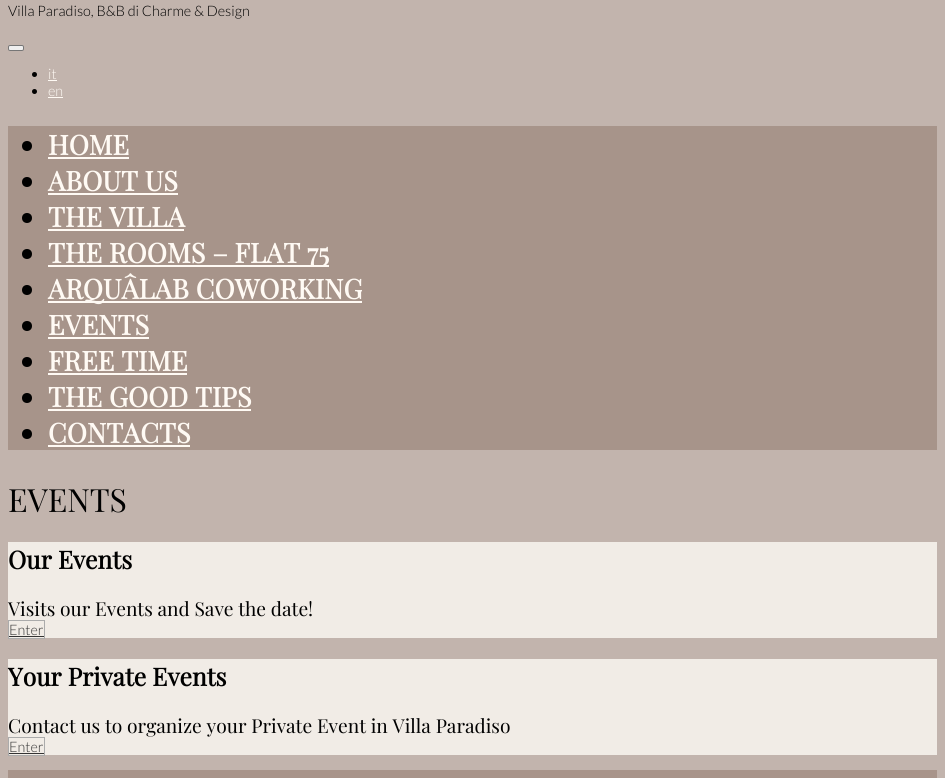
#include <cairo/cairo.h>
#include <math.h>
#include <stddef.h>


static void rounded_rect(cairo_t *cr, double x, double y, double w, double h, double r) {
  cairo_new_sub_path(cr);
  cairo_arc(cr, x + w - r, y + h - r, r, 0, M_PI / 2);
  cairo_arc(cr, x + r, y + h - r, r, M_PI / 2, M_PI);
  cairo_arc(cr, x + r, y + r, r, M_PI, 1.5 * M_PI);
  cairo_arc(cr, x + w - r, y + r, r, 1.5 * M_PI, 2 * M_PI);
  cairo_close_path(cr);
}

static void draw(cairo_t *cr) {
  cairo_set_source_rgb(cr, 194 / 255.0, 180 / 255.0, 173 / 255.0);
  cairo_paint(cr);
  cairo_set_source_rgb(cr, 239 / 255.0, 239 / 255.0, 239 / 255.0);
  rounded_rect(cr, 8.5, 45.5, 15, 5, 1.5);
  cairo_fill_preserve(cr);
  cairo_set_source_rgb(cr, 118 / 255.0, 118 / 255.0, 118 / 255.0);
  cairo_set_line_width(cr, 1);
  cairo_stroke(cr);
  cairo_set_source_rgb(cr, 0, 0, 0);
  cairo_arc(cr, 34.5, 74.5, 2.5, 0, 2 * M_PI);
  cairo_fill(cr);
  cairo_set_source_rgb(cr, 1, 250 / 255.0, 244 / 255.0);
  cairo_rectangle(cr, 48, 80, 9, 1);
  cairo_fill(cr);
  cairo_set_source_rgb(cr, 0, 0, 0);
  cairo_arc(cr, 34.5, 91.5, 2.5, 0, 2 * M_PI);
  cairo_fill(cr);
  cairo_set_source_rgb(cr, 1, 250 / 255.0, 244 / 255.0);
  cairo_rectangle(cr, 48, 97, 15, 1);
  cairo_fill(cr);
  cairo_set_source_rgb(cr, 167 / 255.0, 148 / 255.0, 138 / 255.0);
  cairo_rectangle(cr, 8, 126, 929, 324);
  cairo_fill(cr);
  cairo_set_source_rgb(cr, 0, 0, 0);
  cairo_arc(cr, 27, 146, 5, 0, 2 * M_PI);
  cairo_fill(cr);
  cairo_set_source_rgb(cr, 1, 250 / 255.0, 244 / 255.0);
  cairo_rectangle(cr, 48, 157, 81, 2);
  cairo_fill(cr);
  cairo_set_source_rgb(cr, 0, 0, 0);
  cairo_arc(cr, 27, 182, 5, 0, 2 * M_PI);
  cairo_fill(cr);
  cairo_set_source_rgb(cr, 1, 250 / 255.0, 244 / 255.0);
  cairo_rectangle(cr, 48, 193, 130, 2);
  cairo_fill(cr);
  cairo_set_source_rgb(cr, 0, 0, 0);
  cairo_arc(cr, 27, 218, 5, 0, 2 * M_PI);
  cairo_fill(cr);
  cairo_set_source_rgb(cr, 1, 250 / 255.0, 244 / 255.0);
  cairo_rectangle(cr, 48, 229, 136, 2);
  cairo_fill(cr);
  cairo_set_source_rgb(cr, 0, 0, 0);
  cairo_arc(cr, 27, 254, 5, 0, 2 * M_PI);
  cairo_fill(cr);
  cairo_set_source_rgb(cr, 1, 250 / 255.0, 244 / 255.0);
  cairo_rectangle(cr, 48, 265, 281, 2);
  cairo_fill(cr);
  cairo_set_source_rgb(cr, 0, 0, 0);
  cairo_arc(cr, 27, 290, 5, 0, 2 * M_PI);
  cairo_fill(cr);
  cairo_set_source_rgb(cr, 1, 250 / 255.0, 244 / 255.0);
  cairo_rectangle(cr, 48, 301, 314, 2);
  cairo_fill(cr);
  cairo_set_source_rgb(cr, 0, 0, 0);
  cairo_arc(cr, 27, 326, 5, 0, 2 * M_PI);
  cairo_fill(cr);
  cairo_set_source_rgb(cr, 1, 250 / 255.0, 244 / 255.0);
  cairo_rectangle(cr, 48, 337, 101, 2);
  cairo_fill(cr);
  cairo_set_source_rgb(cr, 0, 0, 0);
  cairo_arc(cr, 27, 362, 5, 0, 2 * M_PI);
  cairo_fill(cr);
  cairo_set_source_rgb(cr, 1, 250 / 255.0, 244 / 255.0);
  cairo_rectangle(cr, 48, 373, 139, 2);
  cairo_fill(cr);
  cairo_set_source_rgb(cr, 0, 0, 0);
  cairo_arc(cr, 27, 398, 5, 0, 2 * M_PI);
  cairo_fill(cr);
  cairo_set_source_rgb(cr, 1, 250 / 255.0, 244 / 255.0);
  cairo_rectangle(cr, 48, 409, 203, 2);
  cairo_fill(cr);
  cairo_set_source_rgb(cr, 0, 0, 0);
  cairo_arc(cr, 27, 434, 5, 0, 2 * M_PI);
  cairo_fill(cr);
  cairo_set_source_rgb(cr, 1, 250 / 255.0, 244 / 255.0);
  cairo_rectangle(cr, 48, 445, 142, 2);
  cairo_fill(cr);
  cairo_set_source_rgb(cr, 241 / 255.0, 236 / 255.0, 230 / 255.0);
  cairo_rectangle(cr, 8, 542, 929, 96);
  cairo_fill(cr);
  cairo_rectangle(cr, 8.5, 620.5, 36, 18);
  cairo_set_source_rgb(cr, 171 / 255.0, 171 / 255.0, 171 / 255.0);
  cairo_stroke(cr);
  cairo_set_source_rgb(cr, 51 / 255.0, 51 / 255.0, 51 / 255.0);
  cairo_rectangle(cr, 9, 636, 35, 1);
  cairo_fill(cr);
  cairo_set_source_rgb(cr, 241 / 255.0, 236 / 255.0, 230 / 255.0);
  cairo_rectangle(cr, 8, 659, 929, 96);
  cairo_fill(cr);
  cairo_rectangle(cr, 8.5, 737.5, 36, 18);
  cairo_set_source_rgb(cr, 171 / 255.0, 171 / 255.0, 171 / 255.0);
  cairo_stroke(cr);
  cairo_set_source_rgb(cr, 51 / 255.0, 51 / 255.0, 51 / 255.0);
  cairo_rectangle(cr, 9, 753, 35, 1);
  cairo_fill(cr);
  cairo_set_source_rgb(cr, 168 / 255.0, 148 / 255.0, 138 / 255.0);
  cairo_rectangle(cr, 8, 770, 929, 8);
  cairo_fill(cr);
  cairo_select_font_face(cr, "Lato Light", CAIRO_FONT_SLANT_NORMAL, CAIRO_FONT_WEIGHT_NORMAL);
  cairo_set_font_size(cr, 14.4);
  cairo_set_source_rgb(cr, 0, 0, 0);
  cairo_move_to(cr, 8, 16);
  cairo_show_text(cr, "Villa Paradiso, B&B di Charme & Design");
  cairo_set_source_rgb(cr, 1, 250 / 255.0, 244 / 255.0);
  cairo_move_to(cr, 48, 79);
  cairo_show_text(cr, "it");
  cairo_move_to(cr, 48, 96);
  cairo_show_text(cr, "en");
  cairo_select_font_face(cr, "Playfair Display", CAIRO_FONT_SLANT_NORMAL, CAIRO_FONT_WEIGHT_BOLD);
  cairo_set_font_size(cr, 27.25);
  cairo_move_to(cr, 48, 155);
  cairo_show_text(cr, "HOME");
  cairo_move_to(cr, 48, 191);
  cairo_show_text(cr, "ABOUT US");
  cairo_move_to(cr, 48, 227);
  cairo_show_text(cr, "THE VILLA");
  cairo_move_to(cr, 48, 263);
  cairo_show_text(cr, "THE ROOMS – FLAT 75");
  cairo_move_to(cr, 48, 299);
  cairo_show_text(cr, "ARQUÂLAB COWORKING");
  cairo_move_to(cr, 48, 335);
  cairo_show_text(cr, "EVENTS");
  cairo_move_to(cr, 48, 371);
  cairo_show_text(cr, "FREE TIME");
  cairo_move_to(cr, 48, 407);
  cairo_show_text(cr, "THE GOOD TIPS");
  cairo_move_to(cr, 48, 443);
  cairo_show_text(cr, "CONTACTS");
  cairo_select_font_face(cr, "Playfair Display", CAIRO_FONT_SLANT_NORMAL, CAIRO_FONT_WEIGHT_NORMAL);
  cairo_set_font_size(cr, 32);
  cairo_set_source_rgb(cr, 0, 0, 0);
  cairo_move_to(cr, 8, 512);
  cairo_show_text(cr, "EVENTS");
  cairo_select_font_face(cr, "Playfair Display", CAIRO_FONT_SLANT_NORMAL, CAIRO_FONT_WEIGHT_BOLD);
  cairo_set_font_size(cr, 24.75);
  cairo_move_to(cr, 8, 569);
  cairo_show_text(cr, "Our Events");
  cairo_select_font_face(cr, "Playfair Display", CAIRO_FONT_SLANT_NORMAL, CAIRO_FONT_WEIGHT_NORMAL);
  cairo_set_font_size(cr, 19.2);
  cairo_move_to(cr, 8, 616);
  cairo_show_text(cr, "Visits our Events and Save the date!");
  cairo_select_font_face(cr, "Lato Light", CAIRO_FONT_SLANT_NORMAL, CAIRO_FONT_WEIGHT_NORMAL);
  cairo_set_font_size(cr, 14.4);
  cairo_set_source_rgb(cr, 51 / 255.0, 51 / 255.0, 51 / 255.0);
  cairo_move_to(cr, 9, 635);
  cairo_show_text(cr, "Enter");
  cairo_select_font_face(cr, "Playfair Display", CAIRO_FONT_SLANT_NORMAL, CAIRO_FONT_WEIGHT_BOLD);
  cairo_set_font_size(cr, 24.75);
  cairo_set_source_rgb(cr, 0, 0, 0);
  cairo_move_to(cr, 8, 686);
  cairo_show_text(cr, "Your Private Events");
  cairo_select_font_face(cr, "Playfair Display", CAIRO_FONT_SLANT_NORMAL, CAIRO_FONT_WEIGHT_NORMAL);
  cairo_set_font_size(cr, 19.2);
  cairo_move_to(cr, 8, 733);
  cairo_show_text(cr, "Contact us to organize your Private Event in Villa Paradiso");
  cairo_select_font_face(cr, "Lato Light", CAIRO_FONT_SLANT_NORMAL, CAIRO_FONT_WEIGHT_NORMAL);
  cairo_set_font_size(cr, 14.4);
  cairo_set_source_rgb(cr, 51 / 255.0, 51 / 255.0, 51 / 255.0);
  cairo_move_to(cr, 9, 752);
  cairo_show_text(cr, "Enter");
}

int main(void) {
  cairo_surface_t *surface = cairo_image_surface_create(CAIRO_FORMAT_RGB24, 945, 778);
  cairo_t *cr = cairo_create(surface);
  cairo_font_options_t *options = cairo_font_options_create();
  cairo_font_options_set_hint_metrics(options, CAIRO_HINT_METRICS_OFF);
  cairo_font_options_set_hint_style(options, CAIRO_HINT_STYLE_NONE);
  cairo_set_font_options(cr, options);
  cairo_set_miter_limit(cr, 4);
  draw(cr);
  cairo_surface_write_to_png(surface, "out.png");
  cairo_font_options_destroy(options);
  cairo_destroy(cr);
  cairo_surface_destroy(surface);
  return 0;
}
